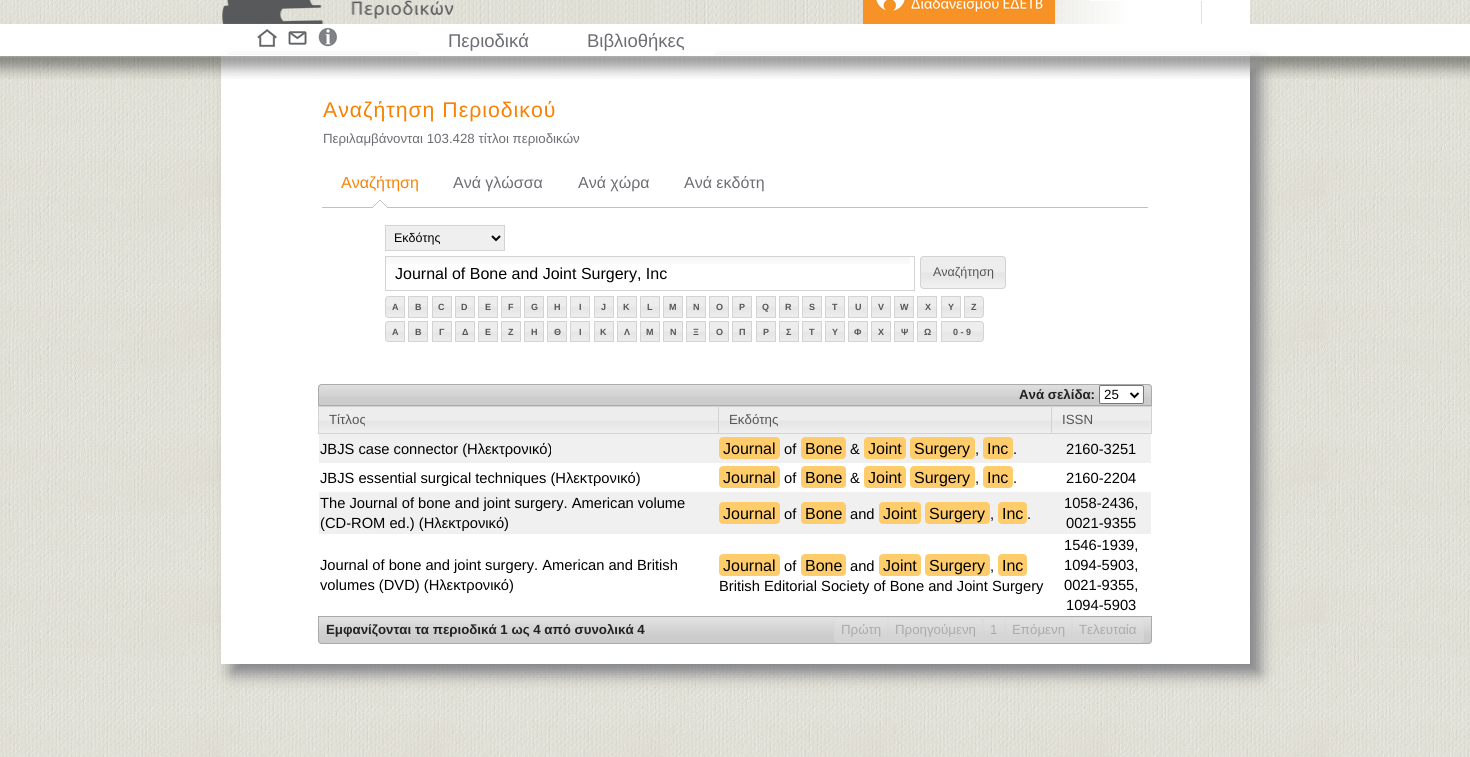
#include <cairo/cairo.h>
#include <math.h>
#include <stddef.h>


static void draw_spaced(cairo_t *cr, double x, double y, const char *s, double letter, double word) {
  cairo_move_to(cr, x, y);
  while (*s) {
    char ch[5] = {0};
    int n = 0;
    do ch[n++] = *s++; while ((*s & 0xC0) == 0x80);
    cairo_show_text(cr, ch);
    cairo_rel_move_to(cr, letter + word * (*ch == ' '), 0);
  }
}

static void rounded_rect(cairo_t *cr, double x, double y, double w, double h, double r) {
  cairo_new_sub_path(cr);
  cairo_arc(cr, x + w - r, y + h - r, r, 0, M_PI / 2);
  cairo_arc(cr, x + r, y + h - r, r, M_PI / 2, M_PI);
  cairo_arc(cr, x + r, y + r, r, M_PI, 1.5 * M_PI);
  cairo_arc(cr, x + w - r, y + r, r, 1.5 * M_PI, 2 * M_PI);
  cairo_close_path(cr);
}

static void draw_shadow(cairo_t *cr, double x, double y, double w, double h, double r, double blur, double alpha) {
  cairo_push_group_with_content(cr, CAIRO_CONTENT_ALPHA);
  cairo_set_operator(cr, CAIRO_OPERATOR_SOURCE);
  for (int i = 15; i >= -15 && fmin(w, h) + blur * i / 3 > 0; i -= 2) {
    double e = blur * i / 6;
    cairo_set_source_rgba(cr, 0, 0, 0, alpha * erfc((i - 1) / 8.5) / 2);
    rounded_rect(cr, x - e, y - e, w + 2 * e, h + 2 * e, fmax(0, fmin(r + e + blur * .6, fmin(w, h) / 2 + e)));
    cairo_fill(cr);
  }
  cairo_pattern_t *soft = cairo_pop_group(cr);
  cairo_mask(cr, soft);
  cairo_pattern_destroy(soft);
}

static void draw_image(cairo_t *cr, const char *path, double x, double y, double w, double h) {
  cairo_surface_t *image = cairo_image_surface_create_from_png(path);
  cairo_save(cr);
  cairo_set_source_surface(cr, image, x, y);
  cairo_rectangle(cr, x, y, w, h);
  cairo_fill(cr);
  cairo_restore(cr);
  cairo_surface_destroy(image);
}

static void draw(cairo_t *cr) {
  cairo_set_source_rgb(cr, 1, 1, 1);
  cairo_paint(cr);
  draw_image(cr, "images/1.png", 0, 0, 1470, 757);
  cairo_set_source_rgb(cr, 1, 1, 1);
  cairo_rectangle(cr, 1202, 0, 48, 24);
  cairo_fill(cr);
  draw_image(cr, "images/2.png", 221, 0, 981, 24);
  draw_image(cr, "images/3.png", 222, 0, 232, 24);
  cairo_rectangle(cr, 1090, 0, 112, 1);
  cairo_fill(cr);
  draw_image(cr, "images/4.png", 863, 0, 192, 24);
  cairo_rectangle(cr, 0, 24, 1470, 31);
  cairo_fill(cr);
  draw_image(cr, "images/8.png", 0, 56, 1470, 608);
  draw_image(cr, "images/9.png", 0, 55, 1470, 24);
  cairo_set_source_rgb(cr, 129 / 255.0, 130 / 255.0, 134 / 255.0);
  draw_shadow(cr, 231, 65, 1029, 609, 0, 7.5, 1);
  draw_image(cr, "images/5.png", 257, 29, 20, 18);
  draw_image(cr, "images/6.png", 288, 31, 19, 14);
  draw_image(cr, "images/7.png", 318, 27, 19, 20);
  cairo_set_source_rgb(cr, 1, 1, 1);
  cairo_rectangle(cr, 419, 50, 296, 5);
  cairo_fill(cr);
  cairo_rectangle(cr, 221, 55, 1029, 609);
  cairo_fill(cr);
  draw_image(cr, "images/10.png", 221, 56, 1029, 23);
  cairo_set_source_rgb(cr, 192 / 255.0, 192 / 255.0, 192 / 255.0);
  cairo_rectangle(cr, 322, 207, 826, 1);
  cairo_fill(cr);
  draw_image(cr, "images/11.png", 373, 200, 14, 8);
  cairo_set_source_rgb(cr, 239 / 255.0, 239 / 255.0, 239 / 255.0);
  cairo_rectangle(cr, 385.5, 225.5, 119, 25);
  cairo_fill_preserve(cr);
  cairo_set_source_rgb(cr, 208 / 255.0, 212 / 255.0, 215 / 255.0);
  cairo_set_line_width(cr, 1);
  cairo_stroke(cr);
  cairo_new_path(cr);
  cairo_move_to(cr, 492, 236);
  cairo_line_to(cr, 496, 240);
  cairo_line_to(cr, 500, 236);
  cairo_set_source_rgb(cr, 0, 0, 0);
  cairo_set_line_width(cr, 2);
  cairo_stroke(cr);
  draw_image(cr, "images/12.png", 386, 257, 524, 7);
  cairo_rectangle(cr, 385.5, 256.5, 529, 34);
  cairo_set_source_rgb(cr, 208 / 255.0, 212 / 255.0, 215 / 255.0);
  cairo_set_line_width(cr, 1);
  cairo_stroke(cr);
  draw_image(cr, "images/13.png", 920, 256, 86, 33);
  rounded_rect(cr, 920.5, 256.5, 85, 32, 3.5);
  cairo_set_source_rgb(cr, 211 / 255.0, 211 / 255.0, 211 / 255.0);
  cairo_stroke(cr);
  draw_image(cr, "images/14.png", 385, 296, 19, 22);
  cairo_new_path(cr);
  cairo_move_to(cr, 389, 296.5);
  cairo_line_to(cr, 404.5, 296.5);
  cairo_line_to(cr, 404.5, 317.5);
  cairo_line_to(cr, 389, 317.5);
  cairo_curve_to(cr, 387, 317.5, 385.5, 316, 385.5, 314);
  cairo_line_to(cr, 385.5, 300);
  cairo_curve_to(cr, 385.5, 298, 387, 296.5, 389, 296.5);
  cairo_close_path(cr);
  cairo_stroke(cr);
  draw_image(cr, "images/15.png", 409, 297, 18, 20);
  cairo_rectangle(cr, 408.5, 296.5, 19, 21);
  cairo_stroke(cr);
  draw_image(cr, "images/15.png", 433, 297, 18, 20);
  cairo_rectangle(cr, 432.5, 296.5, 19, 21);
  cairo_stroke(cr);
  draw_image(cr, "images/15.png", 456, 297, 18, 20);
  cairo_rectangle(cr, 455.5, 296.5, 19, 21);
  cairo_stroke(cr);
  draw_image(cr, "images/15.png", 479, 297, 18, 20);
  cairo_rectangle(cr, 478.5, 296.5, 19, 21);
  cairo_stroke(cr);
  draw_image(cr, "images/15.png", 502, 297, 18, 20);
  cairo_rectangle(cr, 501.5, 296.5, 19, 21);
  cairo_stroke(cr);
  draw_image(cr, "images/15.png", 525, 297, 18, 20);
  cairo_rectangle(cr, 524.5, 296.5, 19, 21);
  cairo_stroke(cr);
  draw_image(cr, "images/15.png", 548, 297, 18, 20);
  cairo_rectangle(cr, 547.5, 296.5, 19, 21);
  cairo_stroke(cr);
  draw_image(cr, "images/15.png", 571, 297, 18, 20);
  cairo_rectangle(cr, 570.5, 296.5, 19, 21);
  cairo_stroke(cr);
  draw_image(cr, "images/15.png", 595, 297, 18, 20);
  cairo_rectangle(cr, 594.5, 296.5, 19, 21);
  cairo_stroke(cr);
  draw_image(cr, "images/15.png", 618, 297, 18, 20);
  cairo_rectangle(cr, 617.5, 296.5, 19, 21);
  cairo_stroke(cr);
  draw_image(cr, "images/15.png", 641, 297, 18, 20);
  cairo_rectangle(cr, 640.5, 296.5, 19, 21);
  cairo_stroke(cr);
  draw_image(cr, "images/15.png", 664, 297, 18, 20);
  cairo_rectangle(cr, 663.5, 296.5, 19, 21);
  cairo_stroke(cr);
  draw_image(cr, "images/15.png", 687, 297, 18, 20);
  cairo_rectangle(cr, 686.5, 296.5, 19, 21);
  cairo_stroke(cr);
  draw_image(cr, "images/15.png", 710, 297, 18, 20);
  cairo_rectangle(cr, 709.5, 296.5, 19, 21);
  cairo_stroke(cr);
  draw_image(cr, "images/15.png", 733, 297, 18, 20);
  cairo_rectangle(cr, 732.5, 296.5, 19, 21);
  cairo_stroke(cr);
  draw_image(cr, "images/15.png", 757, 297, 18, 20);
  cairo_rectangle(cr, 756.5, 296.5, 19, 21);
  cairo_stroke(cr);
  draw_image(cr, "images/15.png", 780, 297, 18, 20);
  cairo_rectangle(cr, 779.5, 296.5, 19, 21);
  cairo_stroke(cr);
  draw_image(cr, "images/15.png", 803, 297, 18, 20);
  cairo_rectangle(cr, 802.5, 296.5, 19, 21);
  cairo_stroke(cr);
  draw_image(cr, "images/15.png", 826, 297, 18, 20);
  cairo_rectangle(cr, 825.5, 296.5, 19, 21);
  cairo_stroke(cr);
  draw_image(cr, "images/15.png", 849, 297, 18, 20);
  cairo_rectangle(cr, 848.5, 296.5, 19, 21);
  cairo_stroke(cr);
  draw_image(cr, "images/15.png", 872, 297, 18, 20);
  cairo_rectangle(cr, 871.5, 296.5, 19, 21);
  cairo_stroke(cr);
  draw_image(cr, "images/15.png", 895, 297, 18, 20);
  cairo_rectangle(cr, 894.5, 296.5, 19, 21);
  cairo_stroke(cr);
  draw_image(cr, "images/15.png", 918, 297, 18, 20);
  cairo_rectangle(cr, 917.5, 296.5, 19, 21);
  cairo_stroke(cr);
  draw_image(cr, "images/15.png", 942, 297, 18, 20);
  cairo_rectangle(cr, 941.5, 296.5, 19, 21);
  cairo_stroke(cr);
  draw_image(cr, "images/16.png", 965, 296, 19, 22);
  cairo_new_path(cr);
  cairo_move_to(cr, 964.5, 296.5);
  cairo_line_to(cr, 980, 296.5);
  cairo_curve_to(cr, 982, 296.5, 983.5, 298, 983.5, 300);
  cairo_line_to(cr, 983.5, 314);
  cairo_curve_to(cr, 983.5, 316, 982, 317.5, 980, 317.5);
  cairo_line_to(cr, 964.5, 317.5);
  cairo_close_path(cr);
  cairo_stroke(cr);
  draw_image(cr, "images/17.png", 385, 321, 19, 21);
  cairo_new_path(cr);
  cairo_move_to(cr, 389, 321.5);
  cairo_line_to(cr, 404.5, 321.5);
  cairo_line_to(cr, 404.5, 341.5);
  cairo_line_to(cr, 389, 341.5);
  cairo_curve_to(cr, 387, 341.5, 385.5, 340, 385.5, 338);
  cairo_line_to(cr, 385.5, 325);
  cairo_curve_to(cr, 385.5, 323, 387, 321.5, 389, 321.5);
  cairo_close_path(cr);
  cairo_stroke(cr);
  draw_image(cr, "images/18.png", 409, 322, 18, 19);
  cairo_rectangle(cr, 408.5, 321.5, 19, 20);
  cairo_stroke(cr);
  draw_image(cr, "images/18.png", 433, 322, 18, 19);
  cairo_rectangle(cr, 432.5, 321.5, 19, 20);
  cairo_stroke(cr);
  draw_image(cr, "images/18.png", 456, 322, 18, 19);
  cairo_rectangle(cr, 455.5, 321.5, 19, 20);
  cairo_stroke(cr);
  draw_image(cr, "images/18.png", 479, 322, 18, 19);
  cairo_rectangle(cr, 478.5, 321.5, 19, 20);
  cairo_stroke(cr);
  draw_image(cr, "images/18.png", 502, 322, 18, 19);
  cairo_rectangle(cr, 501.5, 321.5, 19, 20);
  cairo_stroke(cr);
  draw_image(cr, "images/18.png", 525, 322, 18, 19);
  cairo_rectangle(cr, 524.5, 321.5, 19, 20);
  cairo_stroke(cr);
  draw_image(cr, "images/18.png", 548, 322, 18, 19);
  cairo_rectangle(cr, 547.5, 321.5, 19, 20);
  cairo_stroke(cr);
  draw_image(cr, "images/18.png", 571, 322, 18, 19);
  cairo_rectangle(cr, 570.5, 321.5, 19, 20);
  cairo_stroke(cr);
  draw_image(cr, "images/18.png", 595, 322, 18, 19);
  cairo_rectangle(cr, 594.5, 321.5, 19, 20);
  cairo_stroke(cr);
  draw_image(cr, "images/18.png", 618, 322, 18, 19);
  cairo_rectangle(cr, 617.5, 321.5, 19, 20);
  cairo_stroke(cr);
  draw_image(cr, "images/18.png", 641, 322, 18, 19);
  cairo_rectangle(cr, 640.5, 321.5, 19, 20);
  cairo_stroke(cr);
  draw_image(cr, "images/18.png", 664, 322, 18, 19);
  cairo_rectangle(cr, 663.5, 321.5, 19, 20);
  cairo_stroke(cr);
  draw_image(cr, "images/18.png", 687, 322, 18, 19);
  cairo_rectangle(cr, 686.5, 321.5, 19, 20);
  cairo_stroke(cr);
  draw_image(cr, "images/18.png", 710, 322, 18, 19);
  cairo_rectangle(cr, 709.5, 321.5, 19, 20);
  cairo_stroke(cr);
  draw_image(cr, "images/18.png", 733, 322, 18, 19);
  cairo_rectangle(cr, 732.5, 321.5, 19, 20);
  cairo_stroke(cr);
  draw_image(cr, "images/18.png", 757, 322, 18, 19);
  cairo_rectangle(cr, 756.5, 321.5, 19, 20);
  cairo_stroke(cr);
  draw_image(cr, "images/18.png", 780, 322, 18, 19);
  cairo_rectangle(cr, 779.5, 321.5, 19, 20);
  cairo_stroke(cr);
  draw_image(cr, "images/18.png", 803, 322, 18, 19);
  cairo_rectangle(cr, 802.5, 321.5, 19, 20);
  cairo_stroke(cr);
  draw_image(cr, "images/18.png", 826, 322, 18, 19);
  cairo_rectangle(cr, 825.5, 321.5, 19, 20);
  cairo_stroke(cr);
  draw_image(cr, "images/18.png", 849, 322, 18, 19);
  cairo_rectangle(cr, 848.5, 321.5, 19, 20);
  cairo_stroke(cr);
  draw_image(cr, "images/18.png", 872, 322, 18, 19);
  cairo_rectangle(cr, 871.5, 321.5, 19, 20);
  cairo_stroke(cr);
  draw_image(cr, "images/18.png", 895, 322, 18, 19);
  cairo_rectangle(cr, 894.5, 321.5, 19, 20);
  cairo_stroke(cr);
  draw_image(cr, "images/18.png", 918, 322, 18, 19);
  cairo_rectangle(cr, 917.5, 321.5, 19, 20);
  cairo_stroke(cr);
  draw_image(cr, "images/19.png", 942, 321, 42, 21);
  cairo_new_path(cr);
  cairo_move_to(cr, 941.5, 321.5);
  cairo_line_to(cr, 980, 321.5);
  cairo_curve_to(cr, 982, 321.5, 983.5, 323, 983.5, 325);
  cairo_line_to(cr, 983.5, 338);
  cairo_curve_to(cr, 983.5, 340, 982, 341.5, 980, 341.5);
  cairo_line_to(cr, 941.5, 341.5);
  cairo_close_path(cr);
  cairo_stroke(cr);
  cairo_set_source_rgb(cr, 204 / 255.0, 204 / 255.0, 204 / 255.0);
  cairo_new_path(cr);
  cairo_move_to(cr, 322, 384);
  cairo_line_to(cr, 1148, 384);
  cairo_curve_to(cr, 1150, 384, 1152, 386, 1152, 388);
  cairo_line_to(cr, 1152, 406);
  cairo_line_to(cr, 318, 406);
  cairo_line_to(cr, 318, 388);
  cairo_curve_to(cr, 318, 386, 320, 384, 322, 384);
  cairo_close_path(cr);
  cairo_fill(cr);
  draw_image(cr, "images/20.png", 318, 384, 834, 13);
  cairo_new_path(cr);
  cairo_move_to(cr, 322, 384.5);
  cairo_line_to(cr, 1148, 384.5);
  cairo_curve_to(cr, 1150, 384.5, 1151.5, 386, 1151.5, 388);
  cairo_line_to(cr, 1151.5, 405.5);
  cairo_line_to(cr, 318.5, 405.5);
  cairo_line_to(cr, 318.5, 388);
  cairo_curve_to(cr, 318.5, 386, 320, 384.5, 322, 384.5);
  cairo_close_path(cr);
  cairo_set_source_rgb(cr, 170 / 255.0, 170 / 255.0, 170 / 255.0);
  cairo_stroke(cr);
  cairo_set_source_rgb(cr, 1, 1, 1);
  rounded_rect(cr, 1099.5, 385.5, 44, 18, 1.5);
  cairo_fill_preserve(cr);
  cairo_set_source_rgb(cr, 118 / 255.0, 118 / 255.0, 118 / 255.0);
  cairo_stroke(cr);
  cairo_new_path(cr);
  cairo_move_to(cr, 1130.5, 393);
  cairo_line_to(cr, 1134.5, 397);
  cairo_line_to(cr, 1138.5, 393);
  cairo_set_source_rgb(cr, 0, 0, 0);
  cairo_set_line_width(cr, 2);
  cairo_stroke(cr);
  draw_image(cr, "images/21.png", 319, 407, 399, 26);
  cairo_set_source_rgb(cr, 211 / 255.0, 211 / 255.0, 211 / 255.0);
  cairo_rectangle(cr, 1051, 406, 101, 1);
  cairo_fill(cr);
  cairo_rectangle(cr, 1151, 406, 1, 28);
  cairo_fill(cr);
  cairo_rectangle(cr, 1051, 433, 101, 1);
  cairo_fill(cr);
  cairo_rectangle(cr, 1051, 406, 1, 28);
  cairo_fill(cr);
  cairo_rectangle(cr, 718, 406, 334, 1);
  cairo_fill(cr);
  cairo_rectangle(cr, 718, 433, 334, 1);
  cairo_fill(cr);
  cairo_rectangle(cr, 718, 406, 1, 28);
  cairo_fill(cr);
  cairo_rectangle(cr, 318, 406, 401, 1);
  cairo_fill(cr);
  cairo_rectangle(cr, 318, 433, 401, 1);
  cairo_fill(cr);
  cairo_rectangle(cr, 318, 406, 1, 28);
  cairo_fill(cr);
  draw_image(cr, "images/22.png", 719, 407, 332, 26);
  draw_image(cr, "images/23.png", 1052, 407, 99, 26);
  cairo_set_source_rgb(cr, 240 / 255.0, 240 / 255.0, 240 / 255.0);
  cairo_rectangle(cr, 319, 434, 832, 29);
  cairo_fill(cr);
  cairo_set_source_rgb(cr, 1, 204 / 255.0, 108 / 255.0);
  rounded_rect(cr, 719, 437, 61, 22, 4);
  cairo_fill(cr);
  rounded_rect(cr, 801, 437, 45, 22, 4);
  cairo_fill(cr);
  rounded_rect(cr, 864, 437, 42, 22, 4);
  cairo_fill(cr);
  rounded_rect(cr, 910, 437, 65, 22, 4);
  cairo_fill(cr);
  rounded_rect(cr, 983, 437, 30, 22, 4);
  cairo_fill(cr);
  rounded_rect(cr, 719, 466, 61, 22, 4);
  cairo_fill(cr);
  rounded_rect(cr, 801, 466, 45, 22, 4);
  cairo_fill(cr);
  rounded_rect(cr, 864, 466, 42, 22, 4);
  cairo_fill(cr);
  rounded_rect(cr, 910, 466, 65, 22, 4);
  cairo_fill(cr);
  rounded_rect(cr, 983, 466, 30, 22, 4);
  cairo_fill(cr);
  cairo_set_source_rgb(cr, 240 / 255.0, 240 / 255.0, 240 / 255.0);
  cairo_rectangle(cr, 319, 492, 832, 42);
  cairo_fill(cr);
  cairo_set_source_rgb(cr, 1, 204 / 255.0, 108 / 255.0);
  rounded_rect(cr, 719, 502, 61, 22, 4);
  cairo_fill(cr);
  rounded_rect(cr, 801, 502, 45, 22, 4);
  cairo_fill(cr);
  rounded_rect(cr, 879, 502, 42, 22, 4);
  cairo_fill(cr);
  rounded_rect(cr, 925, 502, 65, 22, 4);
  cairo_fill(cr);
  rounded_rect(cr, 998, 502, 29, 22, 4);
  cairo_fill(cr);
  rounded_rect(cr, 719, 554, 61, 22, 4);
  cairo_fill(cr);
  rounded_rect(cr, 801, 554, 45, 22, 4);
  cairo_fill(cr);
  rounded_rect(cr, 879, 554, 42, 22, 4);
  cairo_fill(cr);
  rounded_rect(cr, 925, 554, 65, 22, 4);
  cairo_fill(cr);
  rounded_rect(cr, 998, 554, 29, 22, 4);
  cairo_fill(cr);
  draw_image(cr, "images/24.png", 318, 617, 834, 27);
  cairo_new_path(cr);
  cairo_move_to(cr, 318.5, 616.5);
  cairo_line_to(cr, 1151.5, 616.5);
  cairo_line_to(cr, 1151.5, 640);
  cairo_curve_to(cr, 1151.5, 642, 1150, 643.5, 1148, 643.5);
  cairo_line_to(cr, 322, 643.5);
  cairo_curve_to(cr, 320, 643.5, 318.5, 642, 318.5, 640);
  cairo_close_path(cr);
  cairo_set_source_rgb(cr, 170 / 255.0, 170 / 255.0, 170 / 255.0);
  cairo_set_line_width(cr, 1);
  cairo_stroke(cr);
  cairo_set_source_rgba(cr, 230 / 255.0, 230 / 255.0, 230 / 255.0, 0.35);
  cairo_new_path(cr);
  cairo_move_to(cr, 838, 617);
  cairo_line_to(cr, 888, 617);
  cairo_line_to(cr, 888, 643);
  cairo_line_to(cr, 838, 643);
  cairo_curve_to(cr, 836, 643, 834, 641, 834, 639);
  cairo_line_to(cr, 834, 621);
  cairo_curve_to(cr, 834, 619, 836, 617, 838, 617);
  cairo_close_path(cr);
  cairo_fill(cr);
  cairo_new_path(cr);
  cairo_move_to(cr, 838, 617.5);
  cairo_line_to(cr, 887.5, 617.5);
  cairo_line_to(cr, 887.5, 642.5);
  cairo_line_to(cr, 838, 642.5);
  cairo_curve_to(cr, 836, 642.5, 834.5, 641, 834.5, 639);
  cairo_line_to(cr, 834.5, 621);
  cairo_curve_to(cr, 834.5, 619, 836, 617.5, 838, 617.5);
  cairo_close_path(cr);
  cairo_set_source_rgba(cr, 211 / 255.0, 211 / 255.0, 211 / 255.0, 0.35);
  cairo_stroke(cr);
  cairo_set_source_rgba(cr, 230 / 255.0, 230 / 255.0, 230 / 255.0, 0.35);
  cairo_rectangle(cr, 888, 620, 95, 23);
  cairo_fill(cr);
  cairo_rectangle(cr, 888.5, 617.5, 94, 25);
  cairo_set_source_rgba(cr, 211 / 255.0, 211 / 255.0, 211 / 255.0, 0.35);
  cairo_stroke(cr);
  cairo_set_source_rgba(cr, 230 / 255.0, 230 / 255.0, 230 / 255.0, 0.35);
  cairo_rectangle(cr, 983, 620, 22, 23);
  cairo_fill(cr);
  cairo_rectangle(cr, 983.5, 617.5, 21, 25);
  cairo_set_source_rgba(cr, 211 / 255.0, 211 / 255.0, 211 / 255.0, 0.35);
  cairo_stroke(cr);
  cairo_set_source_rgba(cr, 230 / 255.0, 230 / 255.0, 230 / 255.0, 0.35);
  cairo_rectangle(cr, 1005, 620, 67, 23);
  cairo_fill(cr);
  cairo_rectangle(cr, 1005.5, 617.5, 66, 25);
  cairo_set_source_rgba(cr, 211 / 255.0, 211 / 255.0, 211 / 255.0, 0.35);
  cairo_stroke(cr);
  cairo_set_source_rgba(cr, 230 / 255.0, 230 / 255.0, 230 / 255.0, 0.35);
  cairo_new_path(cr);
  cairo_move_to(cr, 1072, 617);
  cairo_line_to(cr, 1140, 617);
  cairo_curve_to(cr, 1142, 617, 1144, 619, 1144, 621);
  cairo_line_to(cr, 1144, 639);
  cairo_curve_to(cr, 1144, 641, 1142, 643, 1140, 643);
  cairo_line_to(cr, 1072, 643);
  cairo_close_path(cr);
  cairo_fill(cr);
  cairo_new_path(cr);
  cairo_move_to(cr, 1072.5, 617.5);
  cairo_line_to(cr, 1140, 617.5);
  cairo_curve_to(cr, 1142, 617.5, 1143.5, 619, 1143.5, 621);
  cairo_line_to(cr, 1143.5, 639);
  cairo_curve_to(cr, 1143.5, 641, 1142, 642.5, 1140, 642.5);
  cairo_line_to(cr, 1072.5, 642.5);
  cairo_close_path(cr);
  cairo_set_source_rgba(cr, 211 / 255.0, 211 / 255.0, 211 / 255.0, 0.35);
  cairo_stroke(cr);
  cairo_select_font_face(cr, "Liberation Sans", CAIRO_FONT_SLANT_NORMAL, CAIRO_FONT_WEIGHT_NORMAL);
  cairo_set_font_size(cr, 18.5);
  cairo_set_source_rgb(cr, 109 / 255.0, 110 / 255.0, 115 / 255.0);
  cairo_move_to(cr, 448, 47);
  cairo_show_text(cr, "Περιοδικά");
  cairo_move_to(cr, 587, 47);
  cairo_show_text(cr, "Βιβλιοθήκες");
  cairo_set_font_size(cr, 21.25);
  cairo_set_source_rgb(cr, 247 / 255.0, 129 / 255.0, 2 / 255.0);
  draw_spaced(cr, 323, 117, "Αναζήτηση Περιοδικού", 1, 0);
  cairo_set_font_size(cr, 13.3);
  cairo_set_source_rgb(cr, 109 / 255.0, 110 / 255.0, 115 / 255.0);
  cairo_move_to(cr, 323, 143);
  cairo_show_text(cr, "Περιλαμβάνονται 103.428 τίτλοι περιοδικών");
  cairo_set_font_size(cr, 16);
  cairo_set_source_rgb(cr, 247 / 255.0, 129 / 255.0, 2 / 255.0);
  cairo_move_to(cr, 341, 188);
  cairo_show_text(cr, "Αναζήτηση");
  cairo_set_source_rgb(cr, 109 / 255.0, 110 / 255.0, 115 / 255.0);
  cairo_move_to(cr, 453, 188);
  cairo_show_text(cr, "Ανά γλώσσα");
  cairo_move_to(cr, 578, 188);
  cairo_show_text(cr, "Ανά χώρα");
  cairo_move_to(cr, 684, 188);
  cairo_show_text(cr, "Ανά εκδότη");
  cairo_set_font_size(cr, 12.5);
  cairo_set_source_rgb(cr, 0, 0, 0);
  cairo_move_to(cr, 394, 242);
  cairo_show_text(cr, "Εκδότης");
  cairo_set_font_size(cr, 16);
  cairo_move_to(cr, 395, 279);
  cairo_show_text(cr, "Journal of Bone and Joint Surgery, Inc");
  cairo_set_font_size(cr, 12.5);
  cairo_set_source_rgb(cr, 85 / 255.0, 85 / 255.0, 85 / 255.0);
  cairo_move_to(cr, 933, 276);
  cairo_show_text(cr, "Αναζήτηση");
  cairo_select_font_face(cr, "Liberation Sans", CAIRO_FONT_SLANT_NORMAL, CAIRO_FONT_WEIGHT_BOLD);
  cairo_set_font_size(cr, 9);
  cairo_move_to(cr, 392, 310);
  cairo_show_text(cr, "A");
  cairo_move_to(cr, 415, 310);
  cairo_show_text(cr, "B");
  cairo_move_to(cr, 438, 310);
  cairo_show_text(cr, "C");
  cairo_move_to(cr, 461, 310);
  cairo_show_text(cr, "D");
  cairo_move_to(cr, 485, 310);
  cairo_show_text(cr, "E");
  cairo_move_to(cr, 508, 310);
  cairo_show_text(cr, "F");
  cairo_move_to(cr, 531, 310);
  cairo_show_text(cr, "G");
  cairo_move_to(cr, 554, 310);
  cairo_show_text(cr, "H");
  cairo_move_to(cr, 579, 310);
  cairo_show_text(cr, "I");
  cairo_move_to(cr, 601, 310);
  cairo_show_text(cr, "J");
  cairo_move_to(cr, 623, 310);
  cairo_show_text(cr, "K");
  cairo_move_to(cr, 647, 310);
  cairo_show_text(cr, "L");
  cairo_move_to(cr, 669, 310);
  cairo_show_text(cr, "M");
  cairo_move_to(cr, 693, 310);
  cairo_show_text(cr, "N");
  cairo_move_to(cr, 716, 310);
  cairo_show_text(cr, "O");
  cairo_move_to(cr, 739, 310);
  cairo_show_text(cr, "P");
  cairo_move_to(cr, 762, 310);
  cairo_show_text(cr, "Q");
  cairo_move_to(cr, 785, 310);
  cairo_show_text(cr, "R");
  cairo_move_to(cr, 809, 310);
  cairo_show_text(cr, "S");
  cairo_move_to(cr, 832, 310);
  cairo_show_text(cr, "T");
  cairo_move_to(cr, 855, 310);
  cairo_show_text(cr, "U");
  cairo_move_to(cr, 878, 310);
  cairo_show_text(cr, "V");
  cairo_move_to(cr, 900, 310);
  cairo_show_text(cr, "W");
  cairo_move_to(cr, 925, 310);
  cairo_show_text(cr, "X");
  cairo_move_to(cr, 948, 310);
  cairo_show_text(cr, "Y");
  cairo_move_to(cr, 971, 310);
  cairo_show_text(cr, "Z");
  cairo_move_to(cr, 392, 335);
  cairo_show_text(cr, "Α");
  cairo_move_to(cr, 415, 335);
  cairo_show_text(cr, "Β");
  cairo_move_to(cr, 439, 335);
  cairo_show_text(cr, "Γ");
  cairo_move_to(cr, 462, 335);
  cairo_show_text(cr, "Δ");
  cairo_move_to(cr, 485, 335);
  cairo_show_text(cr, "Ε");
  cairo_move_to(cr, 508, 335);
  cairo_show_text(cr, "Ζ");
  cairo_move_to(cr, 531, 335);
  cairo_show_text(cr, "Η");
  cairo_move_to(cr, 554, 335);
  cairo_show_text(cr, "Θ");
  cairo_move_to(cr, 579, 335);
  cairo_show_text(cr, "Ι");
  cairo_move_to(cr, 600, 335);
  cairo_show_text(cr, "Κ");
  cairo_move_to(cr, 624, 335);
  cairo_show_text(cr, "Λ");
  cairo_move_to(cr, 646, 335);
  cairo_show_text(cr, "Μ");
  cairo_move_to(cr, 670, 335);
  cairo_show_text(cr, "Ν");
  cairo_move_to(cr, 693, 335);
  cairo_show_text(cr, "Ξ");
  cairo_move_to(cr, 716, 335);
  cairo_show_text(cr, "Ο");
  cairo_move_to(cr, 739, 335);
  cairo_show_text(cr, "Π");
  cairo_move_to(cr, 763, 335);
  cairo_show_text(cr, "Ρ");
  cairo_move_to(cr, 786, 335);
  cairo_show_text(cr, "Σ");
  cairo_move_to(cr, 809, 335);
  cairo_show_text(cr, "Τ");
  cairo_move_to(cr, 832, 335);
  cairo_show_text(cr, "Υ");
  cairo_move_to(cr, 854, 335);
  cairo_show_text(cr, "Φ");
  cairo_move_to(cr, 878, 335);
  cairo_show_text(cr, "Χ");
  cairo_move_to(cr, 901, 335);
  cairo_show_text(cr, "Ψ");
  cairo_move_to(cr, 924, 335);
  cairo_show_text(cr, "Ω");
  cairo_move_to(cr, 953, 335);
  cairo_show_text(cr, "0 - 9");
  cairo_set_font_size(cr, 13.3);
  cairo_set_source_rgb(cr, 34 / 255.0, 34 / 255.0, 34 / 255.0);
  cairo_move_to(cr, 1019, 399);
  cairo_show_text(cr, "Ανά σελίδα:");
  cairo_select_font_face(cr, "Liberation Sans", CAIRO_FONT_SLANT_NORMAL, CAIRO_FONT_WEIGHT_NORMAL);
  cairo_set_source_rgb(cr, 0, 0, 0);
  cairo_move_to(cr, 1104, 399);
  cairo_show_text(cr, "25");
  cairo_set_source_rgb(cr, 85 / 255.0, 85 / 255.0, 85 / 255.0);
  cairo_move_to(cr, 329, 424);
  cairo_show_text(cr, "Τίτλος");
  cairo_move_to(cr, 729, 424);
  cairo_show_text(cr, "Εκδότης");
  cairo_move_to(cr, 1062, 424);
  cairo_show_text(cr, "ISSN");
  cairo_set_font_size(cr, 14.7);
  cairo_set_source_rgb(cr, 0, 0, 0);
  cairo_move_to(cr, 320, 454);
  cairo_show_text(cr, "JBJS case connector (Ηλεκτρονικό)");
  cairo_set_font_size(cr, 16);
  cairo_move_to(cr, 723, 454);
  cairo_show_text(cr, "Journal");
  cairo_set_font_size(cr, 14.7);
  cairo_move_to(cr, 784, 454);
  cairo_show_text(cr, "of");
  cairo_set_font_size(cr, 16);
  cairo_move_to(cr, 805, 454);
  cairo_show_text(cr, "Bone");
  cairo_set_font_size(cr, 14.7);
  cairo_move_to(cr, 850, 454);
  cairo_show_text(cr, "&");
  cairo_set_font_size(cr, 16);
  cairo_move_to(cr, 868, 454);
  cairo_show_text(cr, "Joint");
  cairo_move_to(cr, 914, 454);
  cairo_show_text(cr, "Surgery");
  cairo_set_font_size(cr, 14.7);
  cairo_move_to(cr, 975, 454);
  cairo_show_text(cr, ",");
  cairo_set_font_size(cr, 16);
  cairo_move_to(cr, 987, 454);
  cairo_show_text(cr, "Inc");
  cairo_set_font_size(cr, 14.7);
  cairo_move_to(cr, 1013, 454);
  cairo_show_text(cr, ".");
  cairo_move_to(cr, 1066, 454);
  cairo_show_text(cr, "2160-3251");
  cairo_move_to(cr, 320, 483);
  cairo_show_text(cr, "JBJS essential surgical techniques (Ηλεκτρονικό)");
  cairo_set_font_size(cr, 16);
  cairo_move_to(cr, 723, 483);
  cairo_show_text(cr, "Journal");
  cairo_set_font_size(cr, 14.7);
  cairo_move_to(cr, 784, 483);
  cairo_show_text(cr, "of");
  cairo_set_font_size(cr, 16);
  cairo_move_to(cr, 805, 483);
  cairo_show_text(cr, "Bone");
  cairo_set_font_size(cr, 14.7);
  cairo_move_to(cr, 850, 483);
  cairo_show_text(cr, "&");
  cairo_set_font_size(cr, 16);
  cairo_move_to(cr, 868, 483);
  cairo_show_text(cr, "Joint");
  cairo_move_to(cr, 914, 483);
  cairo_show_text(cr, "Surgery");
  cairo_set_font_size(cr, 14.7);
  cairo_move_to(cr, 975, 483);
  cairo_show_text(cr, ",");
  cairo_set_font_size(cr, 16);
  cairo_move_to(cr, 987, 483);
  cairo_show_text(cr, "Inc");
  cairo_set_font_size(cr, 14.7);
  cairo_move_to(cr, 1013, 483);
  cairo_show_text(cr, ".");
  cairo_move_to(cr, 1066, 483);
  cairo_show_text(cr, "2160-2204");
  cairo_move_to(cr, 320, 508);
  cairo_show_text(cr, "The Journal of bone and joint surgery. American volume");
  cairo_move_to(cr, 320, 528);
  cairo_show_text(cr, "(CD-ROM ed.) (Ηλεκτρονικό)");
  cairo_set_font_size(cr, 16);
  cairo_move_to(cr, 723, 519);
  cairo_show_text(cr, "Journal");
  cairo_set_font_size(cr, 14.7);
  cairo_move_to(cr, 784, 519);
  cairo_show_text(cr, "of");
  cairo_set_font_size(cr, 16);
  cairo_move_to(cr, 805, 519);
  cairo_show_text(cr, "Bone");
  cairo_set_font_size(cr, 14.7);
  cairo_move_to(cr, 850, 519);
  cairo_show_text(cr, "and");
  cairo_set_font_size(cr, 16);
  cairo_move_to(cr, 883, 519);
  cairo_show_text(cr, "Joint");
  cairo_move_to(cr, 929, 519);
  cairo_show_text(cr, "Surgery");
  cairo_set_font_size(cr, 14.7);
  cairo_move_to(cr, 990, 519);
  cairo_show_text(cr, ",");
  cairo_set_font_size(cr, 16);
  cairo_move_to(cr, 1002, 519);
  cairo_show_text(cr, "Inc");
  cairo_set_font_size(cr, 14.7);
  cairo_move_to(cr, 1027, 519);
  cairo_show_text(cr, ".");
  cairo_move_to(cr, 1064, 508);
  cairo_show_text(cr, "1058-2436,");
  cairo_move_to(cr, 1066, 528);
  cairo_show_text(cr, "0021-9355");
  cairo_move_to(cr, 320, 570);
  cairo_show_text(cr, "Journal of bone and joint surgery. American and British");
  cairo_move_to(cr, 320, 590);
  cairo_show_text(cr, "volumes (DVD) (Ηλεκτρονικό)");
  cairo_set_font_size(cr, 16);
  cairo_move_to(cr, 723, 571);
  cairo_show_text(cr, "Journal");
  cairo_set_font_size(cr, 14.7);
  cairo_move_to(cr, 784, 571);
  cairo_show_text(cr, "of");
  cairo_set_font_size(cr, 16);
  cairo_move_to(cr, 805, 571);
  cairo_show_text(cr, "Bone");
  cairo_set_font_size(cr, 14.7);
  cairo_move_to(cr, 850, 571);
  cairo_show_text(cr, "and");
  cairo_set_font_size(cr, 16);
  cairo_move_to(cr, 883, 571);
  cairo_show_text(cr, "Joint");
  cairo_move_to(cr, 929, 571);
  cairo_show_text(cr, "Surgery");
  cairo_set_font_size(cr, 14.7);
  cairo_move_to(cr, 990, 571);
  cairo_show_text(cr, ",");
  cairo_set_font_size(cr, 16);
  cairo_move_to(cr, 1002, 571);
  cairo_show_text(cr, "Inc");
  cairo_set_font_size(cr, 14.7);
  cairo_move_to(cr, 719, 591);
  cairo_show_text(cr, "British Editorial Society of Bone and Joint Surgery");
  cairo_move_to(cr, 1064, 550);
  cairo_show_text(cr, "1546-1939,");
  cairo_move_to(cr, 1064, 570);
  cairo_show_text(cr, "1094-5903,");
  cairo_move_to(cr, 1064, 590);
  cairo_show_text(cr, "0021-9355,");
  cairo_move_to(cr, 1066, 610);
  cairo_show_text(cr, "1094-5903");
  cairo_select_font_face(cr, "Liberation Sans", CAIRO_FONT_SLANT_NORMAL, CAIRO_FONT_WEIGHT_BOLD);
  cairo_set_font_size(cr, 13.3);
  cairo_set_source_rgb(cr, 34 / 255.0, 34 / 255.0, 34 / 255.0);
  cairo_move_to(cr, 326, 634);
  cairo_show_text(cr, "Εμφανίζονται τα περιοδικά 1 ως 4 από συνολικά 4");
  cairo_select_font_face(cr, "Liberation Sans", CAIRO_FONT_SLANT_NORMAL, CAIRO_FONT_WEIGHT_NORMAL);
  cairo_set_source_rgb(cr, 171 / 255.0, 171 / 255.0, 171 / 255.0);
  cairo_move_to(cr, 841, 634);
  cairo_show_text(cr, "Πρώτη");
  cairo_move_to(cr, 895, 634);
  cairo_show_text(cr, "Προηγούμενη");
  cairo_move_to(cr, 990, 634);
  cairo_show_text(cr, "1");
  cairo_move_to(cr, 1012, 634);
  cairo_show_text(cr, "Επόμενη");
  cairo_move_to(cr, 1079, 634);
  cairo_show_text(cr, "Τελευταία");
}

int main(void) {
  cairo_surface_t *surface = cairo_image_surface_create(CAIRO_FORMAT_RGB24, 1470, 757);
  cairo_t *cr = cairo_create(surface);
  cairo_font_options_t *options = cairo_font_options_create();
  cairo_font_options_set_hint_metrics(options, CAIRO_HINT_METRICS_OFF);
  cairo_font_options_set_hint_style(options, CAIRO_HINT_STYLE_NONE);
  cairo_set_font_options(cr, options);
  cairo_set_miter_limit(cr, 4);
  draw(cr);
  cairo_surface_write_to_png(surface, "out.png");
  cairo_font_options_destroy(options);
  cairo_destroy(cr);
  cairo_surface_destroy(surface);
  return 0;
}
